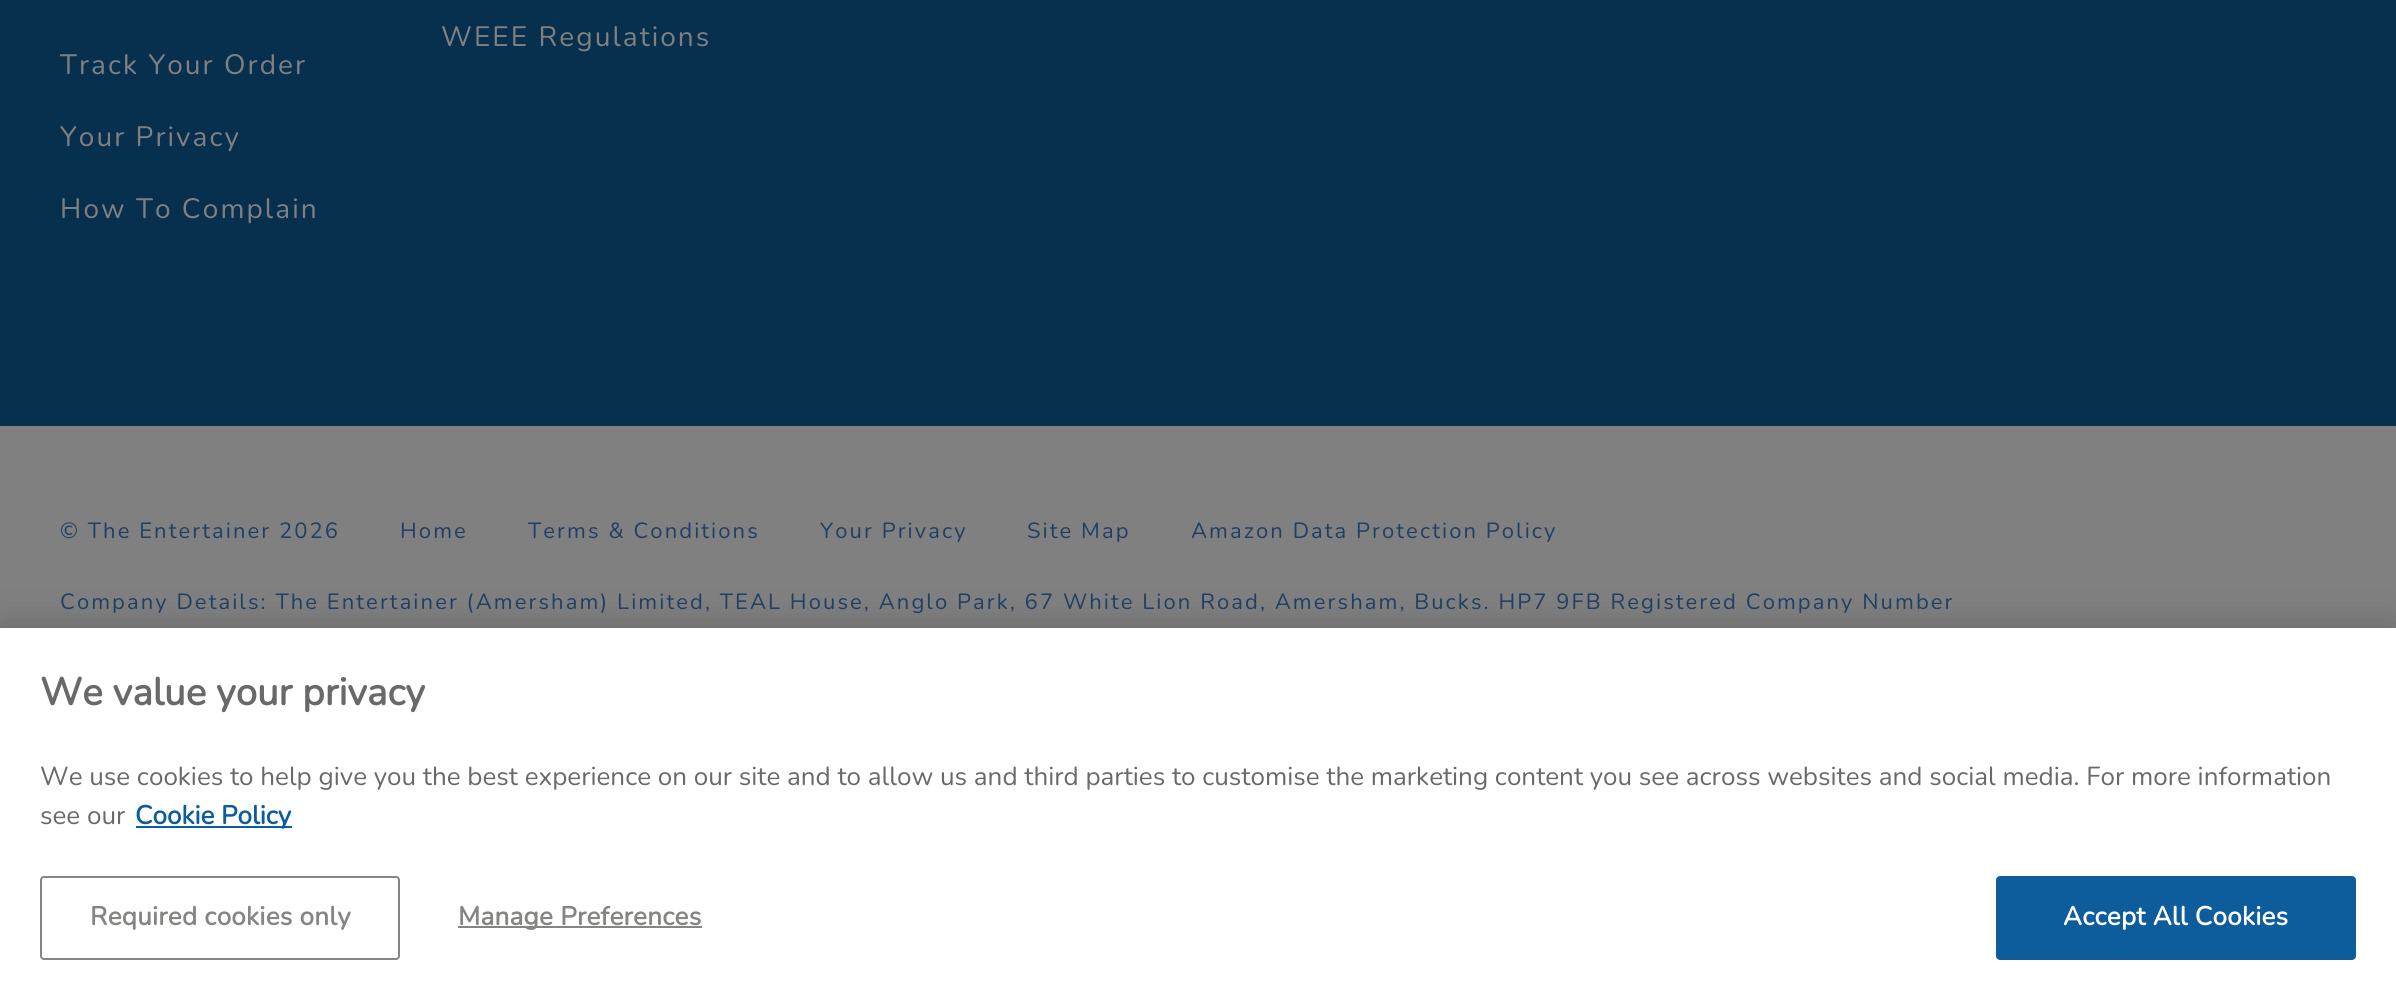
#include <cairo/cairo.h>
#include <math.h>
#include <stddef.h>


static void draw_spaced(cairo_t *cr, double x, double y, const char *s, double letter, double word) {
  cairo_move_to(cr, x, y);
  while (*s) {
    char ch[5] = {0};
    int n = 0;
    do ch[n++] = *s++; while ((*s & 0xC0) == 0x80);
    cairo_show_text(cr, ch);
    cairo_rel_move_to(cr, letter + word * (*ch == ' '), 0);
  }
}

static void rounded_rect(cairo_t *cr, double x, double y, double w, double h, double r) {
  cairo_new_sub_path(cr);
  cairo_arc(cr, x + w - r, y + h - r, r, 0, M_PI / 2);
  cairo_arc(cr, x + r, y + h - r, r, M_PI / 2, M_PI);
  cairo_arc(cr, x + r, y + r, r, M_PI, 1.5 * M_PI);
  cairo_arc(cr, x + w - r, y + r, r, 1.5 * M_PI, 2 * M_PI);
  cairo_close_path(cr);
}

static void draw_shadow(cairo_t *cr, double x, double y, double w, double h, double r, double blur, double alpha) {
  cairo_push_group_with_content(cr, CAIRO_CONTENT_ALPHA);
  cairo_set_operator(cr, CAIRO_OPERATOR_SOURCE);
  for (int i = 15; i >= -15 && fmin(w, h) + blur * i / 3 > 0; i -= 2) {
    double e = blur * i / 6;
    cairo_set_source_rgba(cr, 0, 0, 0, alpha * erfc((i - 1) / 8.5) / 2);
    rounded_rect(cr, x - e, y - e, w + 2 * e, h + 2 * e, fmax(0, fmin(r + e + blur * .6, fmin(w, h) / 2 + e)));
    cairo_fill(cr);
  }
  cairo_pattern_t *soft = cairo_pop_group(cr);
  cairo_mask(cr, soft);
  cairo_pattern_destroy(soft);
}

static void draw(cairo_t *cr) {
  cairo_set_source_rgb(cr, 128 / 255.0, 128 / 255.0, 128 / 255.0);
  cairo_paint(cr);
  cairo_set_source_rgb(cr, 7 / 255.0, 47 / 255.0, 78 / 255.0);
  cairo_rectangle(cr, 0, 0, 2396, 426);
  cairo_fill(cr);
  cairo_set_source_rgb(cr, 0, 0, 0);
  draw_shadow(cr, 0, 628, 2396, 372, 0, 18, 0.2);
  cairo_set_source_rgb(cr, 1, 1, 1);
  cairo_rectangle(cr, 0, 628, 2396, 371);
  cairo_fill(cr);
  cairo_set_source_rgb(cr, 13 / 255.0, 93 / 255.0, 156 / 255.0);
  cairo_rectangle(cr, 136, 826, 156, 2);
  cairo_fill(cr);
  rounded_rect(cr, 41, 877, 358, 82, 3);
  cairo_set_source_rgb(cr, 133 / 255.0, 134 / 255.0, 131 / 255.0);
  cairo_stroke(cr);
  cairo_rectangle(cr, 458, 926, 244, 2);
  cairo_fill(cr);
  cairo_set_source_rgb(cr, 13 / 255.0, 93 / 255.0, 156 / 255.0);
  rounded_rect(cr, 1997, 877, 358, 82, 3);
  cairo_fill_preserve(cr);
  cairo_stroke(cr);
  cairo_select_font_face(cr, "Nunito", CAIRO_FONT_SLANT_NORMAL, CAIRO_FONT_WEIGHT_NORMAL);
  cairo_set_font_size(cr, 28);
  cairo_set_source_rgb(cr, 128 / 255.0, 128 / 255.0, 128 / 255.0);
  draw_spaced(cr, 441, 46, "WEEE Regulations", 2.08, 0);
  draw_spaced(cr, 60, 74, "Track Your Order", 2.08, 0);
  draw_spaced(cr, 60, 146, "Your Privacy", 2.08, 0);
  draw_spaced(cr, 60, 218, "How To Complain", 2.08, 0);
  cairo_set_font_size(cr, 22);
  cairo_set_source_rgb(cr, 32 / 255.0, 63 / 255.0, 101 / 255.0);
  draw_spaced(cr, 60, 538, "© The Entertainer 2026", 2.08, 0);
  draw_spaced(cr, 400, 538, "Home", 2.08, 0);
  draw_spaced(cr, 528, 538, "Terms & Conditions", 2.08, 0);
  draw_spaced(cr, 820, 538, "Your Privacy", 2.08, 0);
  draw_spaced(cr, 1027, 538, "Site Map", 2.08, 0);
  draw_spaced(cr, 1191, 538, "Amazon Data Protection Policy", 2.08, 0);
  draw_spaced(cr, 60, 609, "Company Details: The Entertainer (Amersham) Limited, TEAL House, Anglo Park, 67 White Lion Road, Amersham, Bucks. HP7 9FB Registered Company Number", 2.08, 0);
  cairo_select_font_face(cr, "Nunito", CAIRO_FONT_SLANT_NORMAL, CAIRO_FONT_WEIGHT_BOLD);
  cairo_set_font_size(cr, 38.4);
  cairo_set_source_rgb(cr, 105 / 255.0, 105 / 255.0, 105 / 255.0);
  cairo_move_to(cr, 40, 705);
  cairo_show_text(cr, "We value your privacy");
  cairo_select_font_face(cr, "Nunito", CAIRO_FONT_SLANT_NORMAL, CAIRO_FONT_WEIGHT_NORMAL);
  cairo_set_font_size(cr, 26.02);
  cairo_move_to(cr, 40, 785);
  cairo_show_text(cr, "We use cookies to help give you the best experience on our site and to allow us and third parties to customise the marketing content you see across websites and social media. For more information");
  cairo_move_to(cr, 40, 824);
  cairo_show_text(cr, "see our");
  cairo_select_font_face(cr, "Nunito", CAIRO_FONT_SLANT_NORMAL, CAIRO_FONT_WEIGHT_BOLD);
  cairo_set_source_rgb(cr, 13 / 255.0, 93 / 255.0, 156 / 255.0);
  cairo_move_to(cr, 135, 824);
  cairo_show_text(cr, "Cookie Policy");
  cairo_set_source_rgb(cr, 133 / 255.0, 134 / 255.0, 131 / 255.0);
  draw_spaced(cr, 90, 925, "Required cookies only", 0.25, 0);
  draw_spaced(cr, 458, 925, "Manage Preferences", 0.25, 0);
  cairo_set_source_rgb(cr, 1, 1, 1);
  draw_spaced(cr, 2063, 925, "Accept All Cookies", 0.25, 0);
}

int main(void) {
  cairo_surface_t *surface = cairo_image_surface_create(CAIRO_FORMAT_RGB24, 2396, 999);
  cairo_t *cr = cairo_create(surface);
  cairo_font_options_t *options = cairo_font_options_create();
  cairo_font_options_set_hint_metrics(options, CAIRO_HINT_METRICS_OFF);
  cairo_font_options_set_hint_style(options, CAIRO_HINT_STYLE_NONE);
  cairo_set_font_options(cr, options);
  cairo_set_miter_limit(cr, 4);
  draw(cr);
  cairo_surface_write_to_png(surface, "out.png");
  cairo_font_options_destroy(options);
  cairo_destroy(cr);
  cairo_surface_destroy(surface);
  return 0;
}
